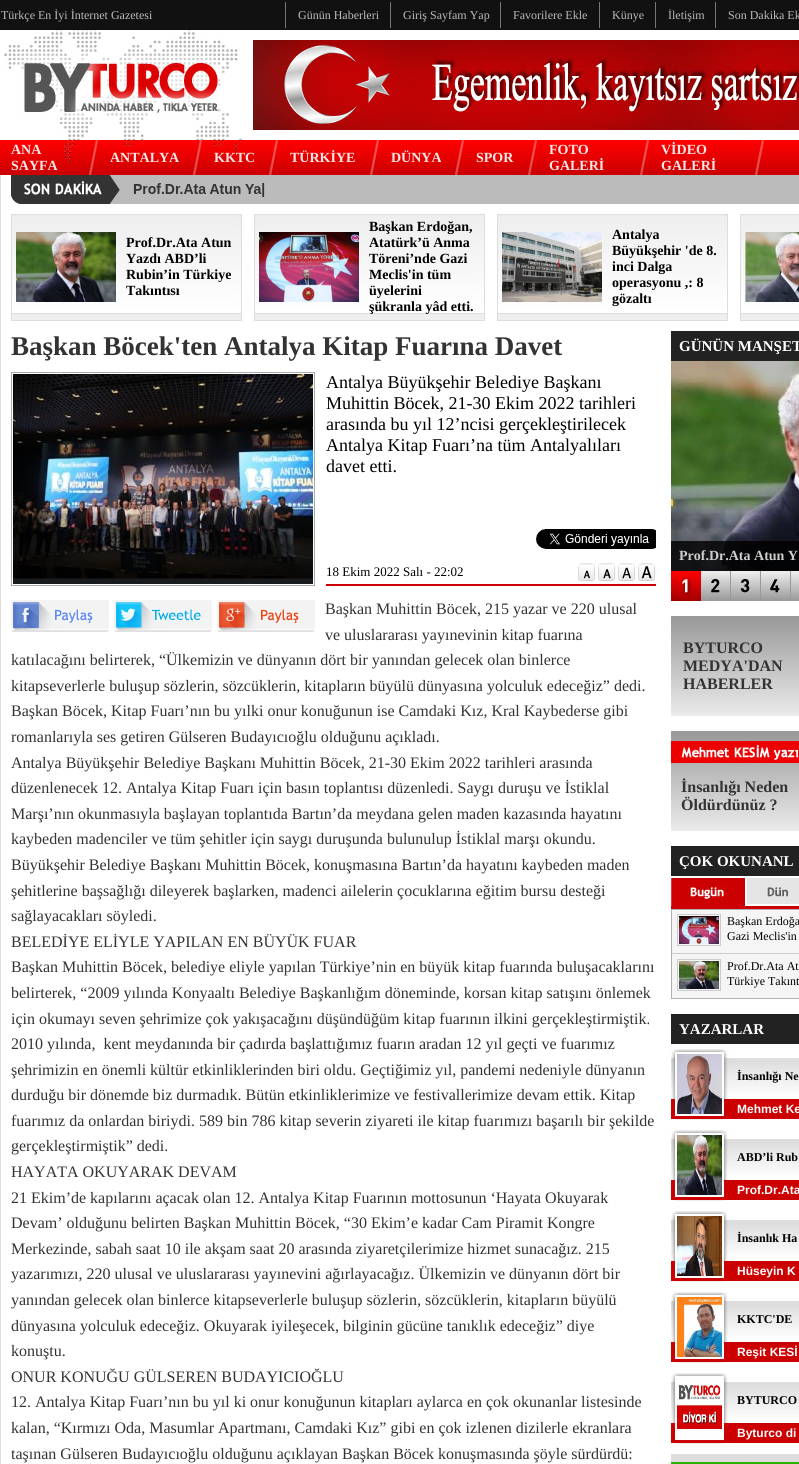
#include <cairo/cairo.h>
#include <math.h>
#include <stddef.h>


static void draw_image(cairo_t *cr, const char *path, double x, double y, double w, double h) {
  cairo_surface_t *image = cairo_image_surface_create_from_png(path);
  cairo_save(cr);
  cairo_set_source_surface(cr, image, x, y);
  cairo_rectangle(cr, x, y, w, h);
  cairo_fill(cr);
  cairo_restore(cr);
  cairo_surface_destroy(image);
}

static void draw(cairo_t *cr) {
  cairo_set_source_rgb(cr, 17 / 255.0, 17 / 255.0, 17 / 255.0);
  cairo_paint(cr);
  cairo_set_source_rgb(cr, 119 / 255.0, 119 / 255.0, 119 / 255.0);
  cairo_rectangle(cr, 285, 2, 1, 26);
  cairo_fill(cr);
  cairo_rectangle(cr, 390, 2, 1, 26);
  cairo_fill(cr);
  cairo_rectangle(cr, 500, 2, 1, 26);
  cairo_fill(cr);
  cairo_rectangle(cr, 599, 2, 1, 26);
  cairo_fill(cr);
  cairo_rectangle(cr, 655, 2, 1, 26);
  cairo_fill(cr);
  cairo_rectangle(cr, 715, 2, 1, 26);
  cairo_fill(cr);
  cairo_set_source_rgb(cr, 1, 1, 1);
  cairo_rectangle(cr, 0, 30, 799, 110);
  cairo_fill(cr);
  draw_image(cr, "images/1.png", 4, 30, 239, 110);
  draw_image(cr, "images/2.png", 253, 40, 546, 90);
  draw_image(cr, "images/3.png", 0, 140, 799, 35);
  draw_image(cr, "images/4.png", 57, 140, 186, 24);
  draw_image(cr, "images/5.png", 75, 140, 23, 35);
  draw_image(cr, "images/6.png", 190, 140, 24, 35);
  draw_image(cr, "images/7.png", 266, 140, 12, 35);
  draw_image(cr, "images/7.png", 367, 140, 12, 35);
  draw_image(cr, "images/7.png", 525, 140, 12, 35);
  draw_image(cr, "images/7.png", 637, 140, 12, 35);
  draw_image(cr, "images/7.png", 752, 140, 12, 35);
  cairo_set_source_rgb(cr, 221 / 255.0, 221 / 255.0, 221 / 255.0);
  cairo_rectangle(cr, 0, 175, 1, 1289);
  cairo_fill(cr);
  cairo_set_source_rgb(cr, 1, 1, 1);
  cairo_rectangle(cr, 1, 175, 10, 1289);
  cairo_fill(cr);
  cairo_rectangle(cr, 11, 204, 788, 1260);
  cairo_fill(cr);
  cairo_set_source_rgb(cr, 187 / 255.0, 187 / 255.0, 187 / 255.0);
  cairo_rectangle(cr, 121, 175, 678, 29);
  cairo_fill(cr);
  draw_image(cr, "images/8.png", 11, 175, 110, 29);
  draw_image(cr, "images/9.png", 133, 183, 132, 14);
  draw_image(cr, "images/10.png", 11, 214, 231, 106);
  draw_image(cr, "images/11.png", 16, 232, 100, 70);
  draw_image(cr, "images/10.png", 254, 214, 231, 106);
  draw_image(cr, "images/12.png", 259, 232, 100, 70);
  draw_image(cr, "images/10.png", 497, 214, 231, 106);
  draw_image(cr, "images/13.png", 502, 232, 100, 70);
  draw_image(cr, "images/14.png", 740, 214, 59, 106);
  draw_image(cr, "images/15.png", 745, 232, 54, 70);
  cairo_set_source_rgb(cr, 221 / 255.0, 221 / 255.0, 221 / 255.0);
  cairo_rectangle(cr, 11, 320, 231, 1);
  cairo_fill(cr);
  cairo_rectangle(cr, 254, 320, 231, 1);
  cairo_fill(cr);
  cairo_rectangle(cr, 497, 320, 231, 1);
  cairo_fill(cr);
  cairo_rectangle(cr, 740, 320, 59, 1);
  cairo_fill(cr);
  cairo_set_source_rgb(cr, 170 / 255.0, 170 / 255.0, 170 / 255.0);
  cairo_rectangle(cr, 11, 372, 304, 1);
  cairo_fill(cr);
  cairo_rectangle(cr, 314, 372, 1, 214);
  cairo_fill(cr);
  cairo_rectangle(cr, 11, 585, 304, 1);
  cairo_fill(cr);
  cairo_rectangle(cr, 11, 372, 1, 214);
  cairo_fill(cr);
  draw_image(cr, "images/16.png", 13, 374, 300, 210);
  draw_image(cr, "images/17.png", 536, 529, 120, 20);
  draw_image(cr, "images/18.png", 578, 563, 18, 19);
  draw_image(cr, "images/19.png", 598, 563, 18, 19);
  draw_image(cr, "images/20.png", 617, 563, 19, 20);
  draw_image(cr, "images/21.png", 637, 563, 19, 19);
  cairo_set_source_rgb(cr, 204 / 255.0, 0, 0);
  cairo_rectangle(cr, 326, 584, 330, 2);
  cairo_fill(cr);
  draw_image(cr, "images/22.png", 11, 600, 98, 32);
  draw_image(cr, "images/23.png", 114, 600, 98, 32);
  draw_image(cr, "images/24.png", 217, 600, 98, 32);
  cairo_set_source_rgb(cr, 34 / 255.0, 34 / 255.0, 34 / 255.0);
  cairo_rectangle(cr, 671, 331, 128, 30);
  cairo_fill(cr);
  draw_image(cr, "images/25.png", 671, 361, 128, 210);
  cairo_set_source_rgba(cr, 0, 0, 0, 0.8);
  cairo_rectangle(cr, 671, 541, 128, 30);
  cairo_fill(cr);
  draw_image(cr, "images/26.png", 671, 571, 30, 30);
  draw_image(cr, "images/27.png", 701, 571, 30, 30);
  draw_image(cr, "images/28.png", 731, 571, 30, 30);
  draw_image(cr, "images/29.png", 761, 571, 30, 30);
  draw_image(cr, "images/30.png", 791, 571, 8, 30);
  draw_image(cr, "images/31.png", 671, 616, 128, 100);
  draw_image(cr, "images/32.png", 671, 731, 128, 100);
  cairo_set_source_rgb(cr, 34 / 255.0, 34 / 255.0, 34 / 255.0);
  cairo_rectangle(cr, 671, 846, 128, 30);
  cairo_fill(cr);
  draw_image(cr, "images/33.png", 671, 878, 75, 28);
  draw_image(cr, "images/34.png", 747, 878, 52, 26);
  cairo_set_source_rgb(cr, 204 / 255.0, 0, 0);
  cairo_rectangle(cr, 671, 906, 128, 3);
  cairo_fill(cr);
  cairo_set_source_rgb(cr, 245 / 255.0, 245 / 255.0, 245 / 255.0);
  cairo_rectangle(cr, 672, 910, 127, 88);
  cairo_fill(cr);
  cairo_set_source_rgb(cr, 177 / 255.0, 177 / 255.0, 177 / 255.0);
  cairo_rectangle(cr, 671, 909, 128, 1);
  cairo_fill(cr);
  cairo_rectangle(cr, 671, 998, 128, 1);
  cairo_fill(cr);
  cairo_rectangle(cr, 671, 909, 1, 90);
  cairo_fill(cr);
  cairo_rectangle(cr, 677.5, 914.5, 43, 31);
  cairo_set_source_rgb(cr, 204 / 255.0, 204 / 255.0, 204 / 255.0);
  cairo_set_line_width(cr, 1);
  cairo_stroke(cr);
  draw_image(cr, "images/35.png", 679, 916, 40, 28);
  cairo_rectangle(cr, 672, 953, 127, 1);
  cairo_fill(cr);
  cairo_rectangle(cr, 677.5, 959.5, 43, 31);
  cairo_stroke(cr);
  draw_image(cr, "images/36.png", 679, 961, 40, 28);
  cairo_set_source_rgb(cr, 34 / 255.0, 34 / 255.0, 34 / 255.0);
  cairo_rectangle(cr, 671, 1014, 128, 30);
  cairo_fill(cr);
  draw_image(cr, "images/37.png", 671, 1049, 128, 71);
  draw_image(cr, "images/38.png", 677, 1054, 45, 60);
  draw_image(cr, "images/37.png", 671, 1130, 128, 71);
  draw_image(cr, "images/39.png", 677, 1135, 45, 60);
  draw_image(cr, "images/37.png", 671, 1211, 128, 71);
  draw_image(cr, "images/40.png", 677, 1216, 45, 60);
  draw_image(cr, "images/37.png", 671, 1292, 128, 71);
  draw_image(cr, "images/41.png", 677, 1297, 45, 60);
  draw_image(cr, "images/37.png", 671, 1373, 128, 71);
  draw_image(cr, "images/42.png", 677, 1383, 45, 55);
  cairo_set_source_rgb(cr, 221 / 255.0, 221 / 255.0, 221 / 255.0);
  cairo_rectangle(cr, 671, 1454, 128, 8);
  cairo_fill(cr);
  draw_image(cr, "images/43.png", 671, 1462, 128, 2);
  cairo_select_font_face(cr, "Liberation Serif", CAIRO_FONT_SLANT_NORMAL, CAIRO_FONT_WEIGHT_NORMAL);
  cairo_set_font_size(cr, 12);
  cairo_set_source_rgb(cr, 187 / 255.0, 187 / 255.0, 187 / 255.0);
  cairo_move_to(cr, 1, 19);
  cairo_show_text(cr, "Türkçe En İyi İnternet Gazetesi");
  cairo_move_to(cr, 298, 19);
  cairo_show_text(cr, "Günün Haberleri");
  cairo_move_to(cr, 403, 19);
  cairo_show_text(cr, "Giriş Sayfam Yap");
  cairo_move_to(cr, 513, 19);
  cairo_show_text(cr, "Favorilere Ekle");
  cairo_move_to(cr, 612, 19);
  cairo_show_text(cr, "Künye");
  cairo_move_to(cr, 668, 19);
  cairo_show_text(cr, "İletişim");
  cairo_move_to(cr, 728, 19);
  cairo_show_text(cr, "Son Dakika Ek");
  cairo_select_font_face(cr, "Liberation Serif", CAIRO_FONT_SLANT_NORMAL, CAIRO_FONT_WEIGHT_BOLD);
  cairo_set_font_size(cr, 14);
  cairo_set_source_rgb(cr, 253 / 255.0, 230 / 255.0, 230 / 255.0);
  cairo_move_to(cr, 11, 154);
  cairo_show_text(cr, "ANA");
  cairo_move_to(cr, 11, 170);
  cairo_show_text(cr, "SAYFA");
  cairo_move_to(cr, 110, 162);
  cairo_show_text(cr, "ANTALYA");
  cairo_move_to(cr, 214, 162);
  cairo_show_text(cr, "KKTC");
  cairo_move_to(cr, 290, 162);
  cairo_show_text(cr, "TÜRKİYE");
  cairo_move_to(cr, 391, 162);
  cairo_show_text(cr, "DÜNYA");
  draw_image(cr, "images/5.png", 441, 140, 23, 35);
  cairo_move_to(cr, 476, 162);
  cairo_show_text(cr, "SPOR");
  cairo_move_to(cr, 549, 154);
  cairo_show_text(cr, "FOTO");
  cairo_move_to(cr, 549, 170);
  cairo_show_text(cr, "GALERİ");
  cairo_move_to(cr, 661, 154);
  cairo_show_text(cr, "VİDEO");
  cairo_move_to(cr, 661, 170);
  cairo_show_text(cr, "GALERİ");
  cairo_set_source_rgb(cr, 0, 0, 0);
  cairo_move_to(cr, 126, 247);
  cairo_show_text(cr, "Prof.Dr.Ata Atun");
  cairo_move_to(cr, 126, 263);
  cairo_show_text(cr, "Yazdı ABD’li");
  cairo_move_to(cr, 126, 279);
  cairo_show_text(cr, "Rubin’in Türkiye");
  cairo_move_to(cr, 126, 295);
  cairo_show_text(cr, "Takıntısı");
  cairo_move_to(cr, 369, 231);
  cairo_show_text(cr, "Başkan Erdoğan,");
  cairo_move_to(cr, 369, 247);
  cairo_show_text(cr, "Atatürk’ü Anma");
  cairo_move_to(cr, 369, 263);
  cairo_show_text(cr, "Töreni’nde Gazi");
  cairo_move_to(cr, 369, 279);
  cairo_show_text(cr, "Meclis'in tüm");
  cairo_move_to(cr, 369, 295);
  cairo_show_text(cr, "üyelerini");
  cairo_move_to(cr, 369, 311);
  cairo_show_text(cr, "şükranla yâd etti.");
  cairo_move_to(cr, 612, 239);
  cairo_show_text(cr, "Antalya");
  cairo_move_to(cr, 612, 255);
  cairo_show_text(cr, "Büyükşehir 'de 8.");
  cairo_move_to(cr, 612, 271);
  cairo_show_text(cr, "inci Dalga");
  cairo_move_to(cr, 612, 287);
  cairo_show_text(cr, "operasyonu ,: 8");
  cairo_move_to(cr, 612, 303);
  cairo_show_text(cr, "gözaltı");
  cairo_set_font_size(cr, 27);
  cairo_set_source_rgb(cr, 51 / 255.0, 51 / 255.0, 51 / 255.0);
  cairo_move_to(cr, 11, 355);
  cairo_show_text(cr, "Başkan Böcek'ten Antalya Kitap Fuarına Davet");
  cairo_select_font_face(cr, "Liberation Serif", CAIRO_FONT_SLANT_NORMAL, CAIRO_FONT_WEIGHT_NORMAL);
  cairo_set_font_size(cr, 18);
  cairo_set_source_rgb(cr, 0, 0, 0);
  cairo_move_to(cr, 326, 388);
  cairo_show_text(cr, "Antalya Büyükşehir Belediye Başkanı");
  cairo_move_to(cr, 326, 409);
  cairo_show_text(cr, "Muhittin Böcek, 21-30 Ekim 2022 tarihleri");
  cairo_move_to(cr, 326, 430);
  cairo_show_text(cr, "arasında bu yıl 12’ncisi gerçekleştirilecek");
  cairo_move_to(cr, 326, 451);
  cairo_show_text(cr, "Antalya Kitap Fuarı’na tüm Antalyalıları");
  cairo_move_to(cr, 326, 472);
  cairo_show_text(cr, "davet etti.");
  cairo_set_font_size(cr, 13);
  cairo_move_to(cr, 326, 576);
  cairo_show_text(cr, "18 Ekim 2022 Salı - 22:02");
  cairo_set_font_size(cr, 16);
  cairo_set_source_rgb(cr, 51 / 255.0, 51 / 255.0, 51 / 255.0);
  cairo_move_to(cr, 325, 614);
  cairo_show_text(cr, "Başkan Muhittin Böcek, 215 yazar ve 220 ulusal");
  cairo_move_to(cr, 325, 640);
  cairo_show_text(cr, "ve uluslararası yayınevinin kitap fuarına");
  cairo_move_to(cr, 11, 665);
  cairo_show_text(cr, "katılacağını belirterek, “Ülkemizin ve dünyanın dört bir yanından gelecek olan binlerce");
  cairo_move_to(cr, 11, 691);
  cairo_show_text(cr, "kitapseverlerle buluşup sözlerin, sözcüklerin, kitapların büyülü dünyasına yolculuk edeceğiz” dedi.");
  cairo_move_to(cr, 11, 716);
  cairo_show_text(cr, "Başkan Böcek, Kitap Fuarı’nın bu yılki onur konuğunun ise Camdaki Kız, Kral Kaybederse gibi");
  cairo_move_to(cr, 11, 742);
  cairo_show_text(cr, "romanlarıyla ses getiren Gülseren Budayıcıoğlu olduğunu açıkladı.");
  cairo_move_to(cr, 11, 768);
  cairo_show_text(cr, "Antalya Büyükşehir Belediye Başkanı Muhittin Böcek, 21-30 Ekim 2022 tarihleri arasında");
  cairo_move_to(cr, 11, 793);
  cairo_show_text(cr, "düzenlenecek 12. Antalya Kitap Fuarı için basın toplantısı düzenledi. Saygı duruşu ve İstiklal");
  cairo_move_to(cr, 11, 819);
  cairo_show_text(cr, "Marşı’nın okunmasıyla başlayan toplantıda Bartın’da meydana gelen maden kazasında hayatını");
  cairo_move_to(cr, 11, 844);
  cairo_show_text(cr, "kaybeden madenciler ve tüm şehitler için saygı duruşunda bulunulup İstiklal marşı okundu.");
  cairo_move_to(cr, 11, 870);
  cairo_show_text(cr, "Büyükşehir Belediye Başkanı Muhittin Böcek, konuşmasına Bartın’da hayatını kaybeden maden");
  cairo_move_to(cr, 11, 896);
  cairo_show_text(cr, "şehitlerine başsağlığı dileyerek başlarken, madenci ailelerin çocuklarına eğitim bursu desteği");
  cairo_move_to(cr, 11, 921);
  cairo_show_text(cr, "sağlayacakları söyledi.");
  cairo_move_to(cr, 11, 947);
  cairo_show_text(cr, "BELEDİYE ELİYLE YAPILAN EN BÜYÜK FUAR");
  cairo_move_to(cr, 11, 972);
  cairo_show_text(cr, "Başkan Muhittin Böcek, belediye eliyle yapılan Türkiye’nin en büyük kitap fuarında buluşacaklarını");
  cairo_move_to(cr, 11, 998);
  cairo_show_text(cr, "belirterek, “2009 yılında Konyaaltı Belediye Başkanlığım döneminde, korsan kitap satışını önlemek");
  cairo_move_to(cr, 11, 1024);
  cairo_show_text(cr, "için okumayı seven şehrimize çok yakışacağını düşündüğüm kitap fuarının ilkini gerçekleştirmiştik.");
  cairo_move_to(cr, 11, 1049);
  cairo_show_text(cr, "2010 yılında,  kent meydanında bir çadırda başlattığımız fuarın aradan 12 yıl geçti ve fuarımız");
  cairo_move_to(cr, 11, 1075);
  cairo_show_text(cr, "şehrimizin en önemli kültür etkinliklerinden biri oldu. Geçtiğimiz yıl, pandemi nedeniyle dünyanın");
  cairo_move_to(cr, 11, 1100);
  cairo_show_text(cr, "durduğu bir dönemde biz durmadık. Bütün etkinliklerimize ve festivallerimize devam ettik. Kitap");
  cairo_move_to(cr, 11, 1126);
  cairo_show_text(cr, "fuarımız da onlardan biriydi. 589 bin 786 kitap severin ziyareti ile kitap fuarımızı başarılı bir şekilde");
  cairo_move_to(cr, 11, 1151);
  cairo_show_text(cr, "gerçekleştirmiştik” dedi.");
  cairo_move_to(cr, 11, 1177);
  cairo_show_text(cr, "HAYATA OKUYARAK DEVAM");
  cairo_move_to(cr, 11, 1203);
  cairo_show_text(cr, "21 Ekim’de kapılarını açacak olan 12. Antalya Kitap Fuarının mottosunun ‘Hayata Okuyarak");
  cairo_move_to(cr, 11, 1228);
  cairo_show_text(cr, "Devam’ olduğunu belirten Başkan Muhittin Böcek, “30 Ekim’e kadar Cam Piramit Kongre");
  cairo_move_to(cr, 11, 1254);
  cairo_show_text(cr, "Merkezinde, sabah saat 10 ile akşam saat 20 arasında ziyaretçilerimize hizmet sunacağız. 215");
  cairo_move_to(cr, 11, 1279);
  cairo_show_text(cr, "yazarımızı, 220 ulusal ve uluslararası yayınevini ağırlayacağız. Ülkemizin ve dünyanın dört bir");
  cairo_move_to(cr, 11, 1305);
  cairo_show_text(cr, "yanından gelecek olan binlerce kitapseverlerle buluşup sözlerin, sözcüklerin, kitapların büyülü");
  cairo_move_to(cr, 11, 1331);
  cairo_show_text(cr, "dünyasına yolculuk edeceğiz. Okuyarak iyileşecek, bilginin gücüne tanıklık edeceğiz” diye");
  cairo_move_to(cr, 11, 1356);
  cairo_show_text(cr, "konuştu.");
  cairo_move_to(cr, 11, 1382);
  cairo_show_text(cr, "ONUR KONUĞU GÜLSEREN BUDAYICIOĞLU");
  cairo_move_to(cr, 11, 1407);
  cairo_show_text(cr, "12. Antalya Kitap Fuarı’nın bu yıl ki onur konuğunun kitapları aylarca en çok okunanlar listesinde");
  cairo_move_to(cr, 11, 1433);
  cairo_show_text(cr, "kalan, “Kırmızı Oda, Masumlar Apartmanı, Camdaki Kız” gibi en çok izlenen dizilerle ekranlara");
  cairo_move_to(cr, 11, 1459);
  cairo_show_text(cr, "taşınan Gülseren Budayıcıoğlu olduğunu açıklayan Başkan Böcek konuşmasında şöyle sürdürdü:");
  cairo_select_font_face(cr, "Liberation Serif", CAIRO_FONT_SLANT_NORMAL, CAIRO_FONT_WEIGHT_BOLD);
  cairo_set_font_size(cr, 15);
  cairo_set_source_rgb(cr, 1, 1, 1);
  cairo_move_to(cr, 679, 351);
  cairo_show_text(cr, "GÜNÜN MANŞET");
  cairo_set_font_size(cr, 14);
  cairo_set_source_rgb(cr, 206 / 255.0, 206 / 255.0, 207 / 255.0);
  cairo_move_to(cr, 679, 560);
  cairo_show_text(cr, "Prof.Dr.Ata Atun Y");
  cairo_set_font_size(cr, 16);
  cairo_set_source_rgb(cr, 51 / 255.0, 51 / 255.0, 51 / 255.0);
  cairo_move_to(cr, 683, 653);
  cairo_show_text(cr, "BYTURCO");
  cairo_move_to(cr, 683, 671);
  cairo_show_text(cr, "MEDYA'DAN");
  cairo_move_to(cr, 683, 689);
  cairo_show_text(cr, "HABERLER");
  cairo_move_to(cr, 681, 792);
  cairo_show_text(cr, "İnsanlığı Neden");
  cairo_move_to(cr, 681, 810);
  cairo_show_text(cr, "Öldürdünüz ?");
  cairo_set_font_size(cr, 15);
  cairo_set_source_rgb(cr, 1, 1, 1);
  cairo_move_to(cr, 679, 866);
  cairo_show_text(cr, "ÇOK OKUNANL");
  cairo_select_font_face(cr, "Liberation Serif", CAIRO_FONT_SLANT_NORMAL, CAIRO_FONT_WEIGHT_NORMAL);
  cairo_set_font_size(cr, 12);
  cairo_set_source_rgb(cr, 0, 0, 0);
  cairo_move_to(cr, 727, 925);
  cairo_show_text(cr, "Başkan Erdoğa");
  cairo_move_to(cr, 727, 940);
  cairo_show_text(cr, "Gazi Meclis'in");
  cairo_move_to(cr, 727, 970);
  cairo_show_text(cr, "Prof.Dr.Ata At");
  cairo_move_to(cr, 727, 985);
  cairo_show_text(cr, "Türkiye Takınt");
  cairo_select_font_face(cr, "Liberation Serif", CAIRO_FONT_SLANT_NORMAL, CAIRO_FONT_WEIGHT_BOLD);
  cairo_set_font_size(cr, 15);
  cairo_set_source_rgb(cr, 1, 1, 1);
  cairo_move_to(cr, 679, 1034);
  cairo_show_text(cr, "YAZARLAR");
  cairo_set_font_size(cr, 12);
  cairo_set_source_rgb(cr, 0, 0, 0);
  cairo_move_to(cr, 737, 1080);
  cairo_show_text(cr, "İnsanlığı Ne");
  cairo_select_font_face(cr, "Liberation Sans", CAIRO_FONT_SLANT_NORMAL, CAIRO_FONT_WEIGHT_BOLD);
  cairo_set_source_rgb(cr, 1, 1, 1);
  cairo_move_to(cr, 737, 1113);
  cairo_show_text(cr, "Mehmet Ke");
  cairo_select_font_face(cr, "Liberation Serif", CAIRO_FONT_SLANT_NORMAL, CAIRO_FONT_WEIGHT_BOLD);
  cairo_set_source_rgb(cr, 0, 0, 0);
  cairo_move_to(cr, 737, 1161);
  cairo_show_text(cr, "ABD’li Rub");
  cairo_select_font_face(cr, "Liberation Sans", CAIRO_FONT_SLANT_NORMAL, CAIRO_FONT_WEIGHT_BOLD);
  cairo_set_source_rgb(cr, 1, 1, 1);
  cairo_move_to(cr, 737, 1194);
  cairo_show_text(cr, "Prof.Dr.Ata");
  cairo_select_font_face(cr, "Liberation Serif", CAIRO_FONT_SLANT_NORMAL, CAIRO_FONT_WEIGHT_BOLD);
  cairo_set_source_rgb(cr, 0, 0, 0);
  cairo_move_to(cr, 737, 1242);
  cairo_show_text(cr, "İnsanlık Ha");
  cairo_select_font_face(cr, "Liberation Sans", CAIRO_FONT_SLANT_NORMAL, CAIRO_FONT_WEIGHT_BOLD);
  cairo_set_source_rgb(cr, 1, 1, 1);
  cairo_move_to(cr, 737, 1275);
  cairo_show_text(cr, "Hüseyin K");
  cairo_select_font_face(cr, "Liberation Serif", CAIRO_FONT_SLANT_NORMAL, CAIRO_FONT_WEIGHT_BOLD);
  cairo_set_source_rgb(cr, 0, 0, 0);
  cairo_move_to(cr, 737, 1323);
  cairo_show_text(cr, "KKTC'DE");
  cairo_select_font_face(cr, "Liberation Sans", CAIRO_FONT_SLANT_NORMAL, CAIRO_FONT_WEIGHT_BOLD);
  cairo_set_source_rgb(cr, 1, 1, 1);
  cairo_move_to(cr, 737, 1356);
  cairo_show_text(cr, "Reşit KESİ");
  cairo_select_font_face(cr, "Liberation Serif", CAIRO_FONT_SLANT_NORMAL, CAIRO_FONT_WEIGHT_BOLD);
  cairo_set_source_rgb(cr, 0, 0, 0);
  cairo_move_to(cr, 737, 1404);
  cairo_show_text(cr, "BYTURCO");
  cairo_select_font_face(cr, "Liberation Sans", CAIRO_FONT_SLANT_NORMAL, CAIRO_FONT_WEIGHT_BOLD);
  cairo_set_source_rgb(cr, 1, 1, 1);
  cairo_move_to(cr, 737, 1437);
  cairo_show_text(cr, "Byturco di");
}

int main(void) {
  cairo_surface_t *surface = cairo_image_surface_create(CAIRO_FORMAT_RGB24, 799, 1464);
  cairo_t *cr = cairo_create(surface);
  cairo_font_options_t *options = cairo_font_options_create();
  cairo_font_options_set_hint_metrics(options, CAIRO_HINT_METRICS_OFF);
  cairo_font_options_set_hint_style(options, CAIRO_HINT_STYLE_NONE);
  cairo_set_font_options(cr, options);
  cairo_set_miter_limit(cr, 4);
  draw(cr);
  cairo_surface_write_to_png(surface, "out.png");
  cairo_font_options_destroy(options);
  cairo_destroy(cr);
  cairo_surface_destroy(surface);
  return 0;
}
